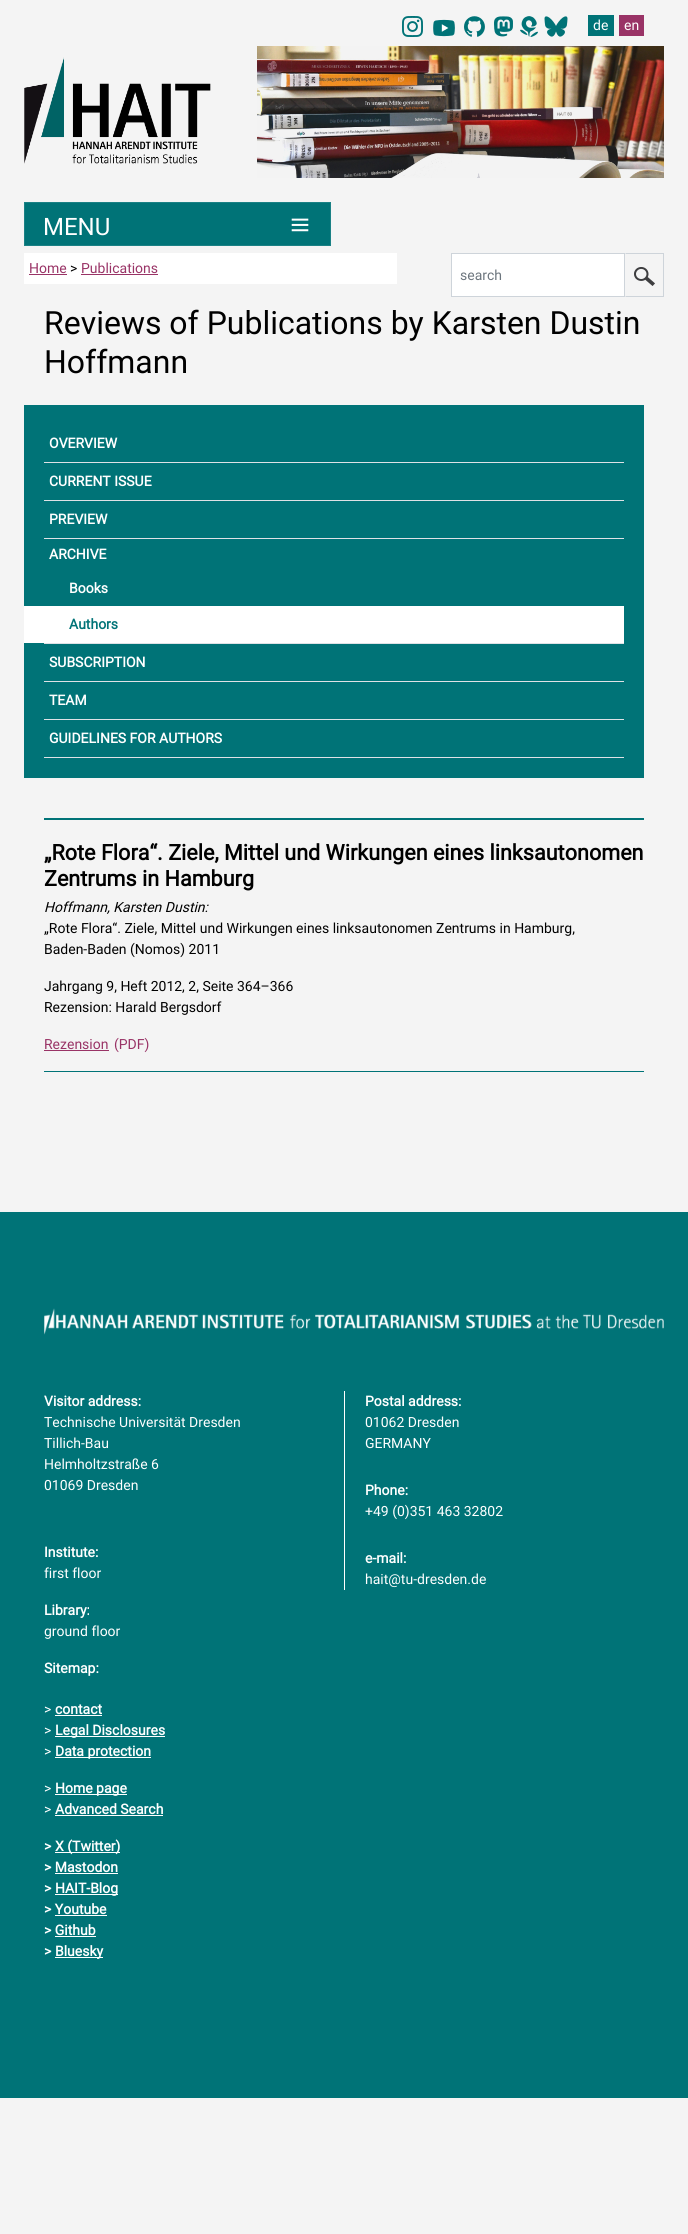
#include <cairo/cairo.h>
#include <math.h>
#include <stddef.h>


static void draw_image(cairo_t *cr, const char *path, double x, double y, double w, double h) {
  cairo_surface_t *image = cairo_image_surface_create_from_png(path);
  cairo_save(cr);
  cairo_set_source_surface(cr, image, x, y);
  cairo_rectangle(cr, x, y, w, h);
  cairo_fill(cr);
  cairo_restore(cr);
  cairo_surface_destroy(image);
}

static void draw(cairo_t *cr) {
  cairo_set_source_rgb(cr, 244 / 255.0, 244 / 255.0, 244 / 255.0);
  cairo_paint(cr);
  draw_image(cr, "images/1.png", 402, 16, 21, 21);
  draw_image(cr, "images/2.png", 433, 19, 22, 18);
  draw_image(cr, "images/3.png", 464, 16, 21, 21);
  draw_image(cr, "images/4.png", 494, 16, 19, 21);
  draw_image(cr, "images/5.png", 520, 16, 18, 21);
  draw_image(cr, "images/6.png", 544, 16, 24, 21);
  cairo_set_source_rgb(cr, 0, 115 / 255.0, 119 / 255.0);
  cairo_rectangle(cr, 588, 15, 26, 21);
  cairo_fill(cr);
  cairo_set_source_rgb(cr, 153 / 255.0, 51 / 255.0, 102 / 255.0);
  cairo_rectangle(cr, 619, 15, 25, 21);
  cairo_fill(cr);
  draw_image(cr, "images/7.png", 24, 57, 187, 107);
  draw_image(cr, "images/8.png", 257, 46, 407, 132);
  cairo_set_source_rgb(cr, 0, 115 / 255.0, 119 / 255.0);
  cairo_rectangle(cr, 24.5, 202.5, 306, 43);
  cairo_fill_preserve(cr);
  cairo_set_source_rgb(cr, 26 / 255.0, 129 / 255.0, 133 / 255.0);
  cairo_set_line_width(cr, 1);
  cairo_stroke(cr);
  draw_image(cr, "images/9.png", 291, 218, 18, 14);
  cairo_set_source_rgb(cr, 1, 1, 1);
  cairo_rectangle(cr, 24, 253, 373, 31);
  cairo_fill(cr);
  cairo_set_source_rgb(cr, 153 / 255.0, 51 / 255.0, 102 / 255.0);
  cairo_rectangle(cr, 29, 274, 38, 1);
  cairo_fill(cr);
  cairo_rectangle(cr, 81, 274, 77, 1);
  cairo_fill(cr);
  cairo_set_source_rgb(cr, 1, 1, 1);
  cairo_rectangle(cr, 451.5, 253.5, 173, 43);
  cairo_fill_preserve(cr);
  cairo_set_source_rgb(cr, 206 / 255.0, 212 / 255.0, 218 / 255.0);
  cairo_stroke(cr);
  cairo_new_path(cr);
  cairo_move_to(cr, 625, 253);
  cairo_line_to(cr, 664, 253);
  cairo_line_to(cr, 663, 254);
  cairo_line_to(cr, 626, 254);
  cairo_close_path(cr);
  cairo_fill(cr);
  cairo_rectangle(cr, 663, 253, 1, 44);
  cairo_fill(cr);
  cairo_new_path(cr);
  cairo_move_to(cr, 664, 297);
  cairo_line_to(cr, 625, 297);
  cairo_line_to(cr, 626, 296);
  cairo_line_to(cr, 663, 296);
  cairo_close_path(cr);
  cairo_fill(cr);
  draw_image(cr, "images/10.png", 634, 267, 21, 19);
  cairo_set_source_rgb(cr, 0, 115 / 255.0, 119 / 255.0);
  cairo_rectangle(cr, 24, 405, 620, 373);
  cairo_fill(cr);
  cairo_set_source_rgb(cr, 222 / 255.0, 226 / 255.0, 230 / 255.0);
  cairo_rectangle(cr, 44, 462, 580, 1);
  cairo_fill(cr);
  cairo_rectangle(cr, 44, 500, 580, 1);
  cairo_fill(cr);
  cairo_rectangle(cr, 44, 538, 580, 1);
  cairo_fill(cr);
  cairo_set_source_rgb(cr, 1, 1, 1);
  cairo_rectangle(cr, 24, 606, 600, 37);
  cairo_fill(cr);
  cairo_set_source_rgb(cr, 222 / 255.0, 226 / 255.0, 230 / 255.0);
  cairo_rectangle(cr, 44, 643, 580, 1);
  cairo_fill(cr);
  cairo_rectangle(cr, 44, 681, 580, 1);
  cairo_fill(cr);
  cairo_rectangle(cr, 44, 719, 580, 1);
  cairo_fill(cr);
  cairo_rectangle(cr, 44, 757, 580, 1);
  cairo_fill(cr);
  cairo_set_source_rgb(cr, 0, 115 / 255.0, 119 / 255.0);
  cairo_rectangle(cr, 44, 818, 600, 2);
  cairo_fill(cr);
  cairo_set_source_rgb(cr, 153 / 255.0, 51 / 255.0, 102 / 255.0);
  cairo_rectangle(cr, 44, 1050, 65, 1);
  cairo_fill(cr);
  cairo_set_source_rgb(cr, 0, 115 / 255.0, 119 / 255.0);
  cairo_rectangle(cr, 44, 1071, 600, 1);
  cairo_fill(cr);
  cairo_rectangle(cr, 0, 1212, 688, 886);
  cairo_fill(cr);
  draw_image(cr, "images/11.png", 44, 1308, 620, 27);
  cairo_set_source_rgb(cr, 1, 1, 1);
  cairo_rectangle(cr, 344, 1391, 1, 199);
  cairo_fill(cr);
  cairo_rectangle(cr, 55, 1715, 47, 1);
  cairo_fill(cr);
  cairo_rectangle(cr, 55, 1736, 110, 1);
  cairo_fill(cr);
  cairo_rectangle(cr, 55, 1757, 96, 1);
  cairo_fill(cr);
  cairo_rectangle(cr, 55, 1794, 72, 1);
  cairo_fill(cr);
  cairo_rectangle(cr, 55, 1815, 108, 1);
  cairo_fill(cr);
  cairo_rectangle(cr, 55, 1852, 65, 1);
  cairo_fill(cr);
  cairo_rectangle(cr, 55, 1873, 63, 1);
  cairo_fill(cr);
  cairo_rectangle(cr, 55, 1894, 63, 1);
  cairo_fill(cr);
  cairo_rectangle(cr, 55, 1915, 52, 1);
  cairo_fill(cr);
  cairo_rectangle(cr, 55, 1936, 41, 1);
  cairo_fill(cr);
  cairo_rectangle(cr, 55, 1957, 48, 1);
  cairo_fill(cr);
  cairo_select_font_face(cr, "Roboto", CAIRO_FONT_SLANT_NORMAL, CAIRO_FONT_WEIGHT_NORMAL);
  cairo_set_font_size(cr, 14);
  cairo_move_to(cr, 593, 30);
  cairo_show_text(cr, "de");
  cairo_move_to(cr, 624, 30);
  cairo_show_text(cr, "en");
  cairo_set_font_size(cr, 24);
  cairo_move_to(cr, 43, 235);
  cairo_show_text(cr, "MENU");
  cairo_set_font_size(cr, 14);
  cairo_set_source_rgb(cr, 153 / 255.0, 51 / 255.0, 102 / 255.0);
  cairo_move_to(cr, 29, 273);
  cairo_show_text(cr, "Home");
  cairo_set_source_rgb(cr, 0, 0, 0);
  cairo_move_to(cr, 70, 273);
  cairo_show_text(cr, ">");
  cairo_set_source_rgb(cr, 153 / 255.0, 51 / 255.0, 102 / 255.0);
  cairo_move_to(cr, 81, 273);
  cairo_show_text(cr, "Publications");
  cairo_set_source_rgb(cr, 108 / 255.0, 117 / 255.0, 125 / 255.0);
  cairo_move_to(cr, 460, 280);
  cairo_show_text(cr, "search");
  cairo_set_font_size(cr, 32);
  cairo_set_source_rgb(cr, 0, 0, 0);
  cairo_move_to(cr, 44, 334);
  cairo_show_text(cr, "Reviews of Publications by Karsten Dustin");
  cairo_move_to(cr, 44, 373);
  cairo_show_text(cr, "Hoffmann");
  cairo_select_font_face(cr, "Roboto", CAIRO_FONT_SLANT_NORMAL, CAIRO_FONT_WEIGHT_BOLD);
  cairo_set_font_size(cr, 14);
  cairo_set_source_rgb(cr, 1, 1, 1);
  cairo_move_to(cr, 49, 448);
  cairo_show_text(cr, "OVERVIEW");
  cairo_move_to(cr, 49, 486);
  cairo_show_text(cr, "CURRENT ISSUE");
  cairo_move_to(cr, 49, 524);
  cairo_show_text(cr, "PREVIEW");
  cairo_move_to(cr, 49, 559);
  cairo_show_text(cr, "ARCHIVE");
  cairo_move_to(cr, 69, 593);
  cairo_show_text(cr, "Books");
  cairo_set_source_rgb(cr, 0, 115 / 255.0, 119 / 255.0);
  cairo_move_to(cr, 69, 629);
  cairo_show_text(cr, "Authors");
  cairo_set_source_rgb(cr, 1, 1, 1);
  cairo_move_to(cr, 49, 667);
  cairo_show_text(cr, "SUBSCRIPTION");
  cairo_move_to(cr, 49, 705);
  cairo_show_text(cr, "TEAM");
  cairo_move_to(cr, 49, 743);
  cairo_show_text(cr, "GUIDELINES FOR AUTHORS");
  cairo_set_font_size(cr, 21.6);
  cairo_set_source_rgb(cr, 0, 0, 0);
  cairo_move_to(cr, 44, 860);
  cairo_show_text(cr, "„Rote Flora“. Ziele, Mittel und Wirkungen eines linksautonomen");
  cairo_move_to(cr, 44, 886);
  cairo_show_text(cr, "Zentrums in Hamburg");
  cairo_select_font_face(cr, "Roboto", CAIRO_FONT_SLANT_ITALIC, CAIRO_FONT_WEIGHT_NORMAL);
  cairo_set_font_size(cr, 14);
  cairo_move_to(cr, 44, 912);
  cairo_show_text(cr, "Hoffmann, Karsten Dustin:");
  cairo_select_font_face(cr, "Roboto", CAIRO_FONT_SLANT_NORMAL, CAIRO_FONT_WEIGHT_NORMAL);
  cairo_move_to(cr, 44, 933);
  cairo_show_text(cr, "„Rote Flora“. Ziele, Mittel und Wirkungen eines linksautonomen Zentrums in Hamburg,");
  cairo_move_to(cr, 44, 954);
  cairo_show_text(cr, "Baden-Baden (Nomos) 2011");
  cairo_move_to(cr, 44, 991);
  cairo_show_text(cr, "Jahrgang 9, Heft 2012, 2, Seite 364–366");
  cairo_move_to(cr, 44, 1012);
  cairo_show_text(cr, "Rezension: Harald Bergsdorf");
  cairo_set_source_rgb(cr, 153 / 255.0, 51 / 255.0, 102 / 255.0);
  cairo_move_to(cr, 44, 1049);
  cairo_show_text(cr, "Rezension");
  cairo_move_to(cr, 114, 1049);
  cairo_show_text(cr, "(PDF)");
  cairo_select_font_face(cr, "Roboto", CAIRO_FONT_SLANT_NORMAL, CAIRO_FONT_WEIGHT_BOLD);
  cairo_set_source_rgb(cr, 1, 1, 1);
  cairo_move_to(cr, 44, 1406);
  cairo_show_text(cr, "Visitor address:");
  cairo_select_font_face(cr, "Roboto", CAIRO_FONT_SLANT_NORMAL, CAIRO_FONT_WEIGHT_NORMAL);
  cairo_move_to(cr, 44, 1427);
  cairo_show_text(cr, "Technische Universität Dresden");
  cairo_move_to(cr, 44, 1448);
  cairo_show_text(cr, "Tillich-Bau");
  cairo_move_to(cr, 44, 1469);
  cairo_show_text(cr, "Helmholtzstraße 6");
  cairo_move_to(cr, 44, 1490);
  cairo_show_text(cr, "01069 Dresden");
  cairo_select_font_face(cr, "Roboto", CAIRO_FONT_SLANT_NORMAL, CAIRO_FONT_WEIGHT_BOLD);
  cairo_move_to(cr, 44, 1557);
  cairo_show_text(cr, "Institute:");
  cairo_select_font_face(cr, "Roboto", CAIRO_FONT_SLANT_NORMAL, CAIRO_FONT_WEIGHT_NORMAL);
  cairo_move_to(cr, 44, 1578);
  cairo_show_text(cr, "first floor");
  cairo_select_font_face(cr, "Roboto", CAIRO_FONT_SLANT_NORMAL, CAIRO_FONT_WEIGHT_BOLD);
  cairo_move_to(cr, 44, 1615);
  cairo_show_text(cr, "Library:");
  cairo_select_font_face(cr, "Roboto", CAIRO_FONT_SLANT_NORMAL, CAIRO_FONT_WEIGHT_NORMAL);
  cairo_move_to(cr, 44, 1636);
  cairo_show_text(cr, "ground floor");
  cairo_select_font_face(cr, "Roboto", CAIRO_FONT_SLANT_NORMAL, CAIRO_FONT_WEIGHT_BOLD);
  cairo_move_to(cr, 365, 1406);
  cairo_show_text(cr, "Postal address:");
  cairo_select_font_face(cr, "Roboto", CAIRO_FONT_SLANT_NORMAL, CAIRO_FONT_WEIGHT_NORMAL);
  cairo_move_to(cr, 365, 1427);
  cairo_show_text(cr, "01062 Dresden");
  cairo_move_to(cr, 365, 1448);
  cairo_show_text(cr, "GERMANY");
  cairo_select_font_face(cr, "Roboto", CAIRO_FONT_SLANT_NORMAL, CAIRO_FONT_WEIGHT_BOLD);
  cairo_move_to(cr, 365, 1495);
  cairo_show_text(cr, "Phone:");
  cairo_select_font_face(cr, "Roboto", CAIRO_FONT_SLANT_NORMAL, CAIRO_FONT_WEIGHT_NORMAL);
  cairo_move_to(cr, 365, 1516);
  cairo_show_text(cr, "+49 (0)351 463 32802");
  cairo_select_font_face(cr, "Roboto", CAIRO_FONT_SLANT_NORMAL, CAIRO_FONT_WEIGHT_BOLD);
  cairo_move_to(cr, 365, 1563);
  cairo_show_text(cr, "e-mail:");
  cairo_select_font_face(cr, "Roboto", CAIRO_FONT_SLANT_NORMAL, CAIRO_FONT_WEIGHT_NORMAL);
  cairo_move_to(cr, 365, 1584);
  cairo_show_text(cr, "hait@tu-dresden.de");
  cairo_select_font_face(cr, "Roboto", CAIRO_FONT_SLANT_NORMAL, CAIRO_FONT_WEIGHT_BOLD);
  cairo_move_to(cr, 44, 1673);
  cairo_show_text(cr, "Sitemap:");
  cairo_select_font_face(cr, "Roboto", CAIRO_FONT_SLANT_NORMAL, CAIRO_FONT_WEIGHT_NORMAL);
  cairo_move_to(cr, 44, 1714);
  cairo_show_text(cr, ">");
  cairo_select_font_face(cr, "Roboto", CAIRO_FONT_SLANT_NORMAL, CAIRO_FONT_WEIGHT_BOLD);
  cairo_move_to(cr, 55, 1714);
  cairo_show_text(cr, "contact");
  cairo_select_font_face(cr, "Roboto", CAIRO_FONT_SLANT_NORMAL, CAIRO_FONT_WEIGHT_NORMAL);
  cairo_move_to(cr, 44, 1735);
  cairo_show_text(cr, ">");
  cairo_select_font_face(cr, "Roboto", CAIRO_FONT_SLANT_NORMAL, CAIRO_FONT_WEIGHT_BOLD);
  cairo_move_to(cr, 55, 1735);
  cairo_show_text(cr, "Legal Disclosures");
  cairo_select_font_face(cr, "Roboto", CAIRO_FONT_SLANT_NORMAL, CAIRO_FONT_WEIGHT_NORMAL);
  cairo_move_to(cr, 44, 1756);
  cairo_show_text(cr, ">");
  cairo_select_font_face(cr, "Roboto", CAIRO_FONT_SLANT_NORMAL, CAIRO_FONT_WEIGHT_BOLD);
  cairo_move_to(cr, 55, 1756);
  cairo_show_text(cr, "Data protection");
  cairo_select_font_face(cr, "Roboto", CAIRO_FONT_SLANT_NORMAL, CAIRO_FONT_WEIGHT_NORMAL);
  cairo_move_to(cr, 44, 1793);
  cairo_show_text(cr, ">");
  cairo_select_font_face(cr, "Roboto", CAIRO_FONT_SLANT_NORMAL, CAIRO_FONT_WEIGHT_BOLD);
  cairo_move_to(cr, 55, 1793);
  cairo_show_text(cr, "Home page");
  cairo_select_font_face(cr, "Roboto", CAIRO_FONT_SLANT_NORMAL, CAIRO_FONT_WEIGHT_NORMAL);
  cairo_move_to(cr, 44, 1814);
  cairo_show_text(cr, ">");
  cairo_select_font_face(cr, "Roboto", CAIRO_FONT_SLANT_NORMAL, CAIRO_FONT_WEIGHT_BOLD);
  cairo_move_to(cr, 55, 1814);
  cairo_show_text(cr, "Advanced Search");
  cairo_move_to(cr, 44, 1851);
  cairo_show_text(cr, ">");
  cairo_move_to(cr, 55, 1851);
  cairo_show_text(cr, "X (Twitter)");
  cairo_move_to(cr, 44, 1872);
  cairo_show_text(cr, "> Mastodon");
  cairo_move_to(cr, 44, 1893);
  cairo_show_text(cr, ">");
  cairo_move_to(cr, 55, 1893);
  cairo_show_text(cr, "HAIT-Blog");
  cairo_move_to(cr, 44, 1914);
  cairo_show_text(cr, "> Youtube");
  cairo_move_to(cr, 44, 1935);
  cairo_show_text(cr, "> Github");
  cairo_move_to(cr, 44, 1956);
  cairo_show_text(cr, ">");
  cairo_move_to(cr, 55, 1956);
  cairo_show_text(cr, "Bluesky");
}

int main(void) {
  cairo_surface_t *surface = cairo_image_surface_create(CAIRO_FORMAT_RGB24, 688, 2234);
  cairo_t *cr = cairo_create(surface);
  cairo_font_options_t *options = cairo_font_options_create();
  cairo_font_options_set_hint_metrics(options, CAIRO_HINT_METRICS_OFF);
  cairo_font_options_set_hint_style(options, CAIRO_HINT_STYLE_NONE);
  cairo_set_font_options(cr, options);
  cairo_set_miter_limit(cr, 4);
  draw(cr);
  cairo_surface_write_to_png(surface, "out.png");
  cairo_font_options_destroy(options);
  cairo_destroy(cr);
  cairo_surface_destroy(surface);
  return 0;
}
